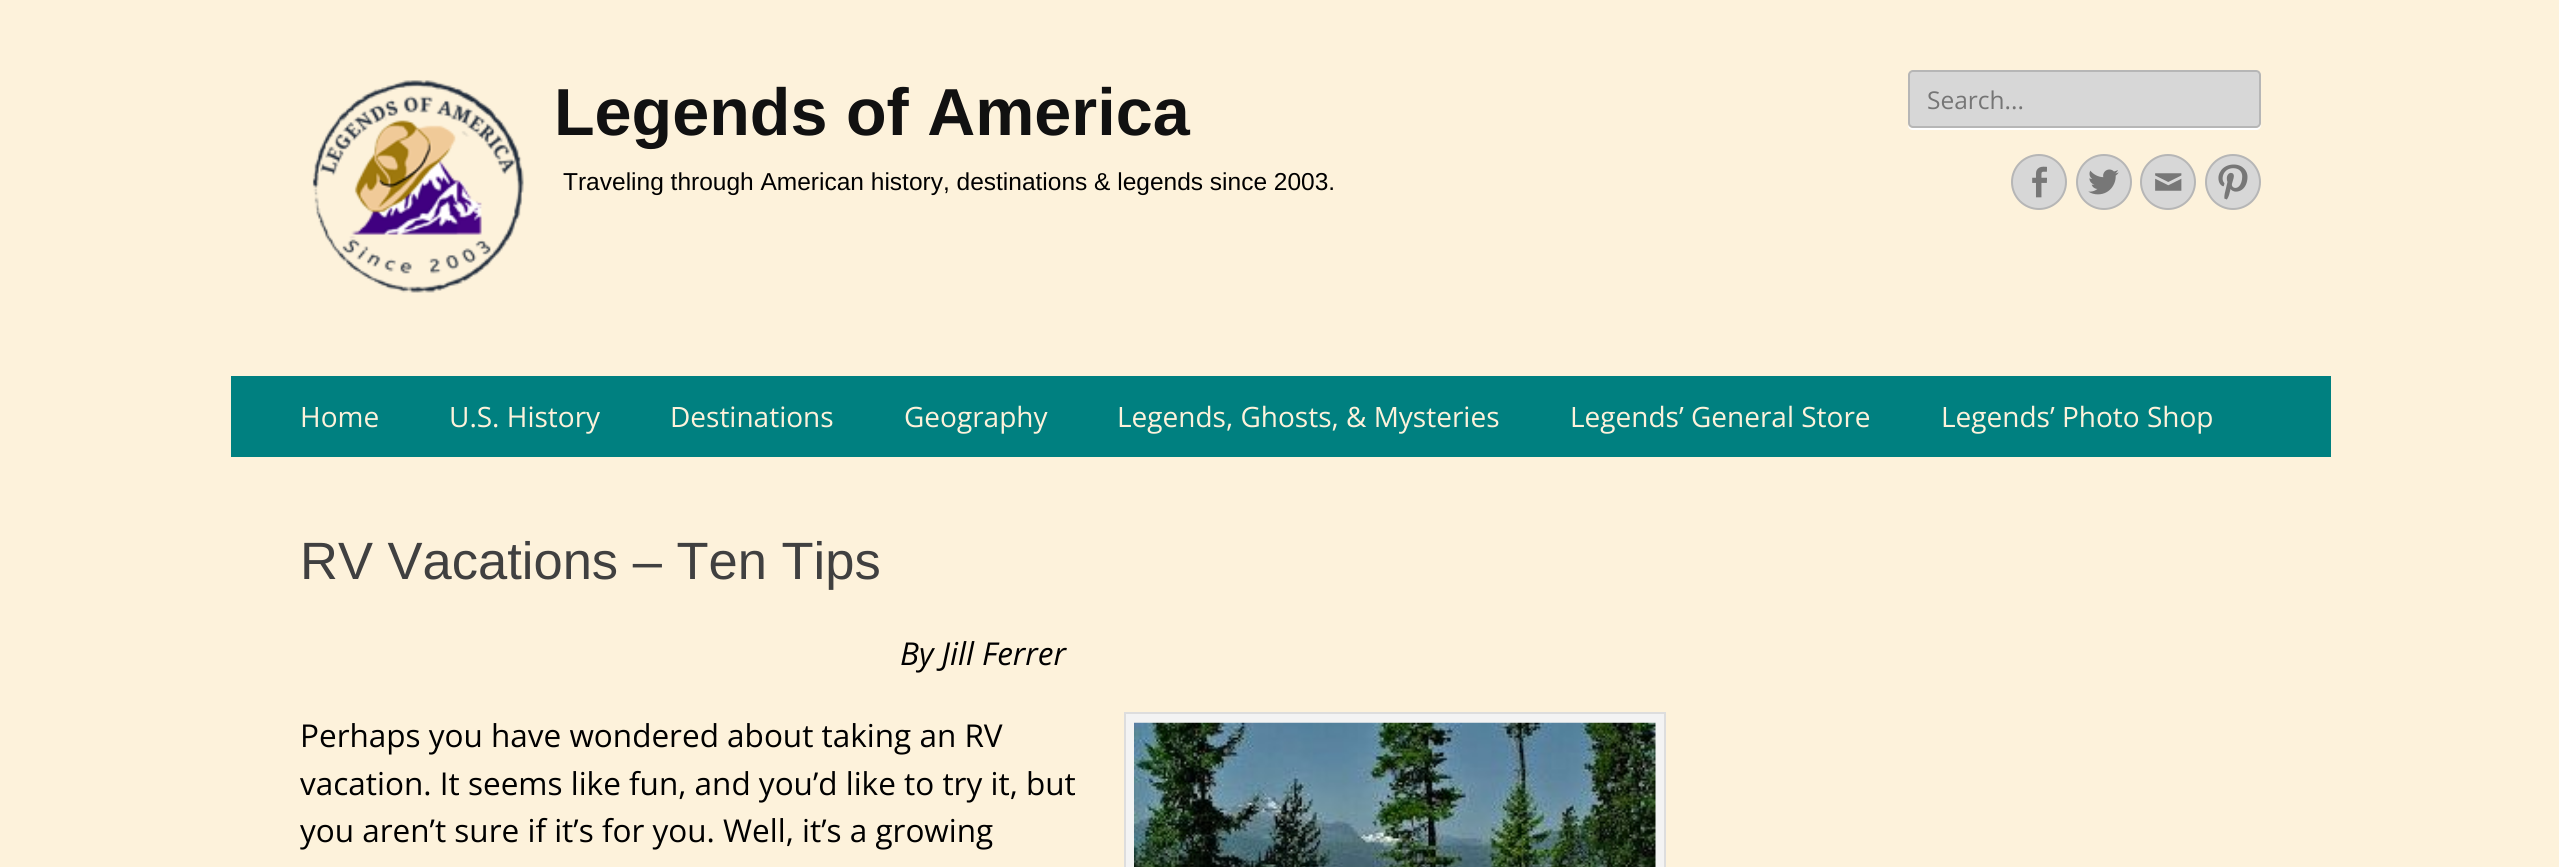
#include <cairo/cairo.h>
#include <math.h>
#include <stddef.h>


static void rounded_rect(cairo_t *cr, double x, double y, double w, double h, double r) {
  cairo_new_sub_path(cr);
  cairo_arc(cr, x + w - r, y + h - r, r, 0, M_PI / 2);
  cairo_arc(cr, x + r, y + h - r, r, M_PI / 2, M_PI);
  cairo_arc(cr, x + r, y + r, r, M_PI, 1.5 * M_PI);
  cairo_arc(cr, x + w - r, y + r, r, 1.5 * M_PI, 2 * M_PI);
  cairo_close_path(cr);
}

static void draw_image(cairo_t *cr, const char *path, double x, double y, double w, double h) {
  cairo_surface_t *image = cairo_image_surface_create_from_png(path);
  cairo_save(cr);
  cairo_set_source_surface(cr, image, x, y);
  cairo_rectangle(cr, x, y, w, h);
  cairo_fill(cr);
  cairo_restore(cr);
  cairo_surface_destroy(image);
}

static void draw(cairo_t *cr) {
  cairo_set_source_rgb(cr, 253 / 255.0, 242 / 255.0, 219 / 255.0);
  cairo_paint(cr);
  draw_image(cr, "images/1.png", 312, 80, 212, 213);
  cairo_set_source_rgb(cr, 1, 1, 1);
  cairo_new_path(cr);
  cairo_move_to(cr, 1908, 125);
  cairo_curve_to(cr, 1908, 128, 1910, 130, 1913, 130);
  cairo_line_to(cr, 2257, 130);
  cairo_curve_to(cr, 2261, 129, 2261, 126, 2261, 122);
  cairo_curve_to(cr, 2261, 125, 2259, 128, 2256, 128);
  cairo_line_to(cr, 1913, 128);
  cairo_curve_to(cr, 1911, 128, 1909, 127, 1908, 125);
  cairo_close_path(cr);
  cairo_fill(cr);
  cairo_set_source_rgb(cr, 215 / 255.0, 215 / 255.0, 215 / 255.0);
  rounded_rect(cr, 1909, 71, 351, 56, 4);
  cairo_fill_preserve(cr);
  cairo_set_source_rgb(cr, 182 / 255.0, 182 / 255.0, 182 / 255.0);
  cairo_stroke(cr);
  cairo_set_source_rgb(cr, 215 / 255.0, 215 / 255.0, 215 / 255.0);
  cairo_arc(cr, 2039, 182, 27, 0, 2 * M_PI);
  cairo_fill_preserve(cr);
  cairo_set_source_rgb(cr, 182 / 255.0, 182 / 255.0, 182 / 255.0);
  cairo_stroke(cr);
  draw_image(cr, "images/2.png", 2032, 166, 15, 32);
  cairo_set_source_rgb(cr, 215 / 255.0, 215 / 255.0, 215 / 255.0);
  cairo_arc(cr, 2104, 182, 27, 0, 2 * M_PI);
  cairo_fill_preserve(cr);
  cairo_set_source_rgb(cr, 182 / 255.0, 182 / 255.0, 182 / 255.0);
  cairo_stroke(cr);
  draw_image(cr, "images/3.png", 2088, 169, 31, 26);
  cairo_set_source_rgb(cr, 215 / 255.0, 215 / 255.0, 215 / 255.0);
  cairo_arc(cr, 2168, 182, 27, 0, 2 * M_PI);
  cairo_fill_preserve(cr);
  cairo_set_source_rgb(cr, 182 / 255.0, 182 / 255.0, 182 / 255.0);
  cairo_stroke(cr);
  draw_image(cr, "images/4.png", 2155, 173, 27, 18);
  cairo_set_source_rgb(cr, 215 / 255.0, 215 / 255.0, 215 / 255.0);
  cairo_arc(cr, 2233, 182, 27, 0, 2 * M_PI);
  cairo_fill_preserve(cr);
  cairo_set_source_rgb(cr, 182 / 255.0, 182 / 255.0, 182 / 255.0);
  cairo_stroke(cr);
  draw_image(cr, "images/5.png", 2218, 164, 30, 36);
  cairo_set_source_rgb(cr, 0, 128 / 255.0, 128 / 255.0);
  cairo_rectangle(cr, 231, 376, 2100, 81);
  cairo_fill(cr);
  cairo_set_source_rgb(cr, 243 / 255.0, 243 / 255.0, 243 / 255.0);
  cairo_rectangle(cr, 1125, 713, 540, 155);
  cairo_fill_preserve(cr);
  cairo_set_source_rgb(cr, 221 / 255.0, 221 / 255.0, 221 / 255.0);
  cairo_stroke(cr);
  draw_image(cr, "images/6.png", 1134, 722, 522, 145);
  cairo_select_font_face(cr, "Liberation Sans", CAIRO_FONT_SLANT_NORMAL, CAIRO_FONT_WEIGHT_BOLD);
  cairo_set_font_size(cr, 66.5);
  cairo_set_source_rgb(cr, 17 / 255.0, 17 / 255.0, 17 / 255.0);
  cairo_move_to(cr, 554, 135);
  cairo_show_text(cr, "Legends of America");
  cairo_select_font_face(cr, "Liberation Sans", CAIRO_FONT_SLANT_NORMAL, CAIRO_FONT_WEIGHT_NORMAL);
  cairo_set_font_size(cr, 24.5);
  cairo_set_source_rgb(cr, 0, 0, 0);
  cairo_move_to(cr, 563, 190);
  cairo_show_text(cr, "Traveling through American history, destinations & legends since 2003.");
  cairo_select_font_face(cr, "Open Sans", CAIRO_FONT_SLANT_NORMAL, CAIRO_FONT_WEIGHT_NORMAL);
  cairo_set_source_rgb(cr, 117 / 255.0, 117 / 255.0, 117 / 255.0);
  cairo_move_to(cr, 1927, 109);
  cairo_show_text(cr, "Search...");
  cairo_set_font_size(cr, 28);
  cairo_set_source_rgb(cr, 253 / 255.0, 242 / 255.0, 219 / 255.0);
  cairo_move_to(cr, 300, 427);
  cairo_show_text(cr, "Home");
  cairo_move_to(cr, 449, 427);
  cairo_show_text(cr, "U.S. History");
  cairo_move_to(cr, 670, 427);
  cairo_show_text(cr, "Destinations");
  cairo_move_to(cr, 904, 427);
  cairo_show_text(cr, "Geography");
  cairo_move_to(cr, 1117, 427);
  cairo_show_text(cr, "Legends, Ghosts, & Mysteries");
  cairo_move_to(cr, 1570, 427);
  cairo_show_text(cr, "Legends’ General Store");
  cairo_move_to(cr, 1941, 427);
  cairo_show_text(cr, "Legends’ Photo Shop");
  cairo_select_font_face(cr, "Liberation Sans", CAIRO_FONT_SLANT_NORMAL, CAIRO_FONT_WEIGHT_NORMAL);
  cairo_set_font_size(cr, 52.5);
  cairo_set_source_rgb(cr, 64 / 255.0, 64 / 255.0, 64 / 255.0);
  cairo_move_to(cr, 300, 579);
  cairo_show_text(cr, "RV Vacations – Ten Tips");
  cairo_select_font_face(cr, "Open Sans", CAIRO_FONT_SLANT_ITALIC, CAIRO_FONT_WEIGHT_NORMAL);
  cairo_set_font_size(cr, 31.5);
  cairo_set_source_rgb(cr, 0, 0, 0);
  cairo_move_to(cr, 900, 665);
  cairo_show_text(cr, "By Jill Ferrer");
  cairo_select_font_face(cr, "Open Sans", CAIRO_FONT_SLANT_NORMAL, CAIRO_FONT_WEIGHT_NORMAL);
  cairo_move_to(cr, 300, 747);
  cairo_show_text(cr, "Perhaps you have wondered about taking an RV");
  cairo_move_to(cr, 300, 795);
  cairo_show_text(cr, "vacation. It seems like fun, and you’d like to try it, but");
  cairo_move_to(cr, 300, 842);
  cairo_show_text(cr, "you aren’t sure if it’s for you. Well, it’s a growing");
}

int main(void) {
  cairo_surface_t *surface = cairo_image_surface_create(CAIRO_FORMAT_RGB24, 2559, 867);
  cairo_t *cr = cairo_create(surface);
  cairo_font_options_t *options = cairo_font_options_create();
  cairo_font_options_set_hint_metrics(options, CAIRO_HINT_METRICS_OFF);
  cairo_font_options_set_hint_style(options, CAIRO_HINT_STYLE_NONE);
  cairo_set_font_options(cr, options);
  cairo_set_miter_limit(cr, 4);
  draw(cr);
  cairo_surface_write_to_png(surface, "out.png");
  cairo_font_options_destroy(options);
  cairo_destroy(cr);
  cairo_surface_destroy(surface);
  return 0;
}
